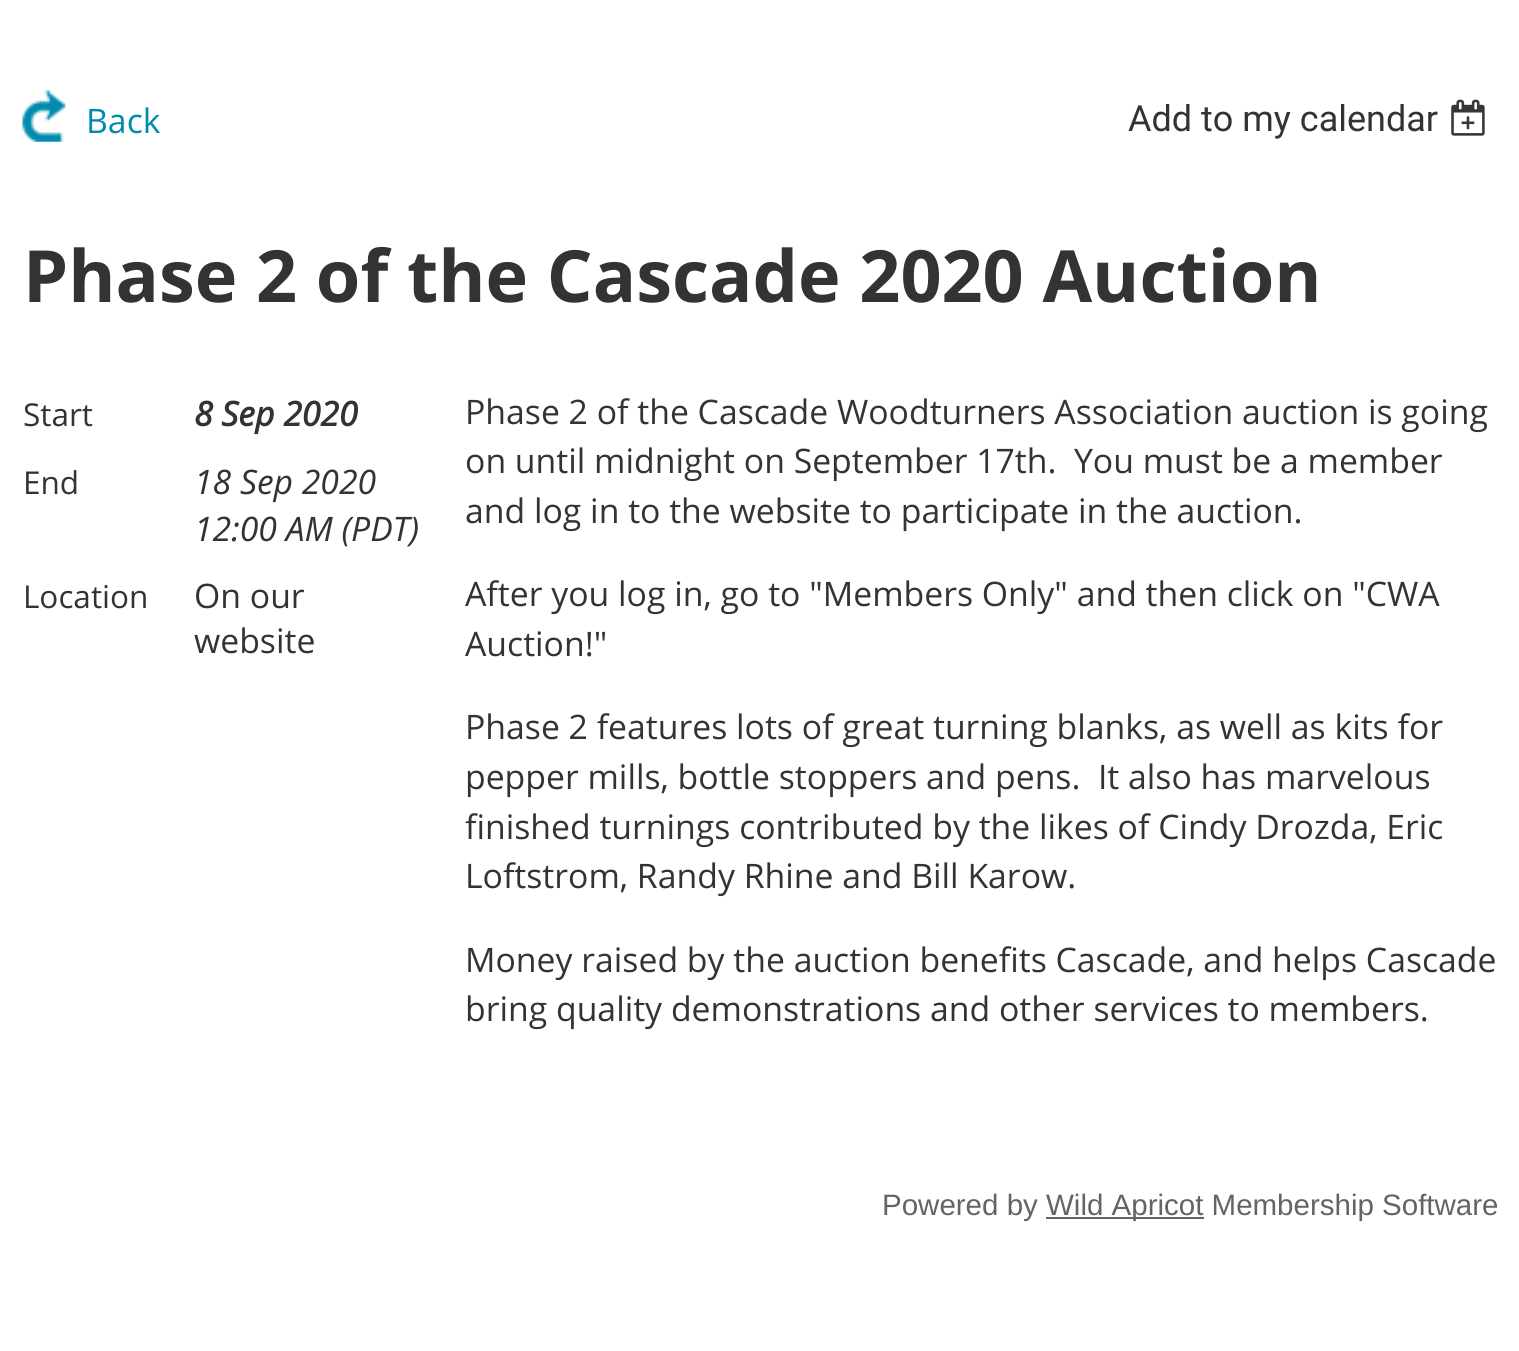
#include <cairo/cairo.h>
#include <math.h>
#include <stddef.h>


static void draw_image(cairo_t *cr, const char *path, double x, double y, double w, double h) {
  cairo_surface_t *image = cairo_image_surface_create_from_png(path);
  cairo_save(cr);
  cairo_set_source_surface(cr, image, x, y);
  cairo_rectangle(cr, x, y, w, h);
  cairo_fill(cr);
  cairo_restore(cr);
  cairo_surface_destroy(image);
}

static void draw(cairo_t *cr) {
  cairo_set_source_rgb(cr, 1, 1, 1);
  cairo_paint(cr);
  draw_image(cr, "images/1.png", 22, 90, 44, 52);
  draw_image(cr, "images/2.png", 1451, 99, 34, 37);
  cairo_set_source_rgb(cr, 100 / 255.0, 100 / 255.0, 100 / 255.0);
  cairo_rectangle(cr, 1046, 1217, 158, 2);
  cairo_fill(cr);
  cairo_select_font_face(cr, "Open Sans", CAIRO_FONT_SLANT_NORMAL, CAIRO_FONT_WEIGHT_NORMAL);
  cairo_set_font_size(cr, 33.75);
  cairo_set_source_rgb(cr, 0, 139 / 255.0, 174 / 255.0);
  cairo_move_to(cr, 86, 133);
  cairo_show_text(cr, "Back");
  cairo_select_font_face(cr, "Roboto", CAIRO_FONT_SLANT_NORMAL, CAIRO_FONT_WEIGHT_NORMAL);
  cairo_set_font_size(cr, 36);
  cairo_set_source_rgb(cr, 51 / 255.0, 51 / 255.0, 51 / 255.0);
  cairo_move_to(cr, 1128, 131);
  cairo_show_text(cr, "Add to my calendar");
  cairo_select_font_face(cr, "Open Sans", CAIRO_FONT_SLANT_NORMAL, CAIRO_FONT_WEIGHT_BOLD);
  cairo_set_font_size(cr, 72);
  cairo_move_to(cr, 23, 302);
  cairo_show_text(cr, "Phase 2 of the Cascade 2020 Auction");
  cairo_select_font_face(cr, "Open Sans", CAIRO_FONT_SLANT_NORMAL, CAIRO_FONT_WEIGHT_NORMAL);
  cairo_set_font_size(cr, 31.5);
  cairo_move_to(cr, 23, 426);
  cairo_show_text(cr, "Start");
  cairo_select_font_face(cr, "Open Sans", CAIRO_FONT_SLANT_ITALIC, CAIRO_FONT_WEIGHT_BOLD);
  cairo_set_font_size(cr, 33.75);
  cairo_move_to(cr, 194, 426);
  cairo_show_text(cr, "8 Sep 2020");
  cairo_select_font_face(cr, "Open Sans", CAIRO_FONT_SLANT_NORMAL, CAIRO_FONT_WEIGHT_NORMAL);
  cairo_set_font_size(cr, 31.5);
  cairo_move_to(cr, 23, 494);
  cairo_show_text(cr, "End");
  cairo_select_font_face(cr, "Open Sans", CAIRO_FONT_SLANT_ITALIC, CAIRO_FONT_WEIGHT_NORMAL);
  cairo_set_font_size(cr, 33.75);
  cairo_move_to(cr, 194, 494);
  cairo_show_text(cr, "18 Sep 2020");
  cairo_move_to(cr, 194, 541);
  cairo_show_text(cr, "12:00 AM (PDT)");
  cairo_select_font_face(cr, "Open Sans", CAIRO_FONT_SLANT_NORMAL, CAIRO_FONT_WEIGHT_NORMAL);
  cairo_set_font_size(cr, 31.5);
  cairo_move_to(cr, 23, 608);
  cairo_show_text(cr, "Location");
  cairo_set_font_size(cr, 33.75);
  cairo_move_to(cr, 194, 608);
  cairo_show_text(cr, "On our");
  cairo_move_to(cr, 194, 653);
  cairo_show_text(cr, "website");
  cairo_move_to(cr, 465, 424);
  cairo_show_text(cr, "Phase 2 of the Cascade Woodturners Association auction is going");
  cairo_move_to(cr, 465, 473);
  cairo_show_text(cr, "on until midnight on September 17th.  You must be a member");
  cairo_move_to(cr, 465, 523);
  cairo_show_text(cr, "and log in to the website to participate in the auction.");
  cairo_move_to(cr, 465, 606);
  cairo_show_text(cr, "After you log in, go to \"Members Only\" and then click on \"CWA");
  cairo_move_to(cr, 465, 656);
  cairo_show_text(cr, "Auction!\"");
  cairo_move_to(cr, 465, 739);
  cairo_show_text(cr, "Phase 2 features lots of great turning blanks, as well as kits for");
  cairo_move_to(cr, 465, 789);
  cairo_show_text(cr, "pepper mills, bottle stoppers and pens.  It also has marvelous");
  cairo_move_to(cr, 465, 839);
  cairo_show_text(cr, "finished turnings contributed by the likes of Cindy Drozda, Eric");
  cairo_move_to(cr, 465, 888);
  cairo_show_text(cr, "Loftstrom, Randy Rhine and Bill Karow.");
  cairo_move_to(cr, 465, 972);
  cairo_show_text(cr, "Money raised by the auction benefits Cascade, and helps Cascade");
  cairo_move_to(cr, 465, 1021);
  cairo_show_text(cr, "bring quality demonstrations and other services to members.");
  cairo_select_font_face(cr, "Liberation Sans", CAIRO_FONT_SLANT_NORMAL, CAIRO_FONT_WEIGHT_NORMAL);
  cairo_set_font_size(cr, 29.5);
  cairo_set_source_rgb(cr, 100 / 255.0, 100 / 255.0, 100 / 255.0);
  cairo_move_to(cr, 882, 1215);
  cairo_show_text(cr, "Powered by");
  cairo_move_to(cr, 1046, 1215);
  cairo_show_text(cr, "Wild Apricot Membership Software");
}

int main(void) {
  cairo_surface_t *surface = cairo_image_surface_create(CAIRO_FORMAT_RGB24, 1519, 1351);
  cairo_t *cr = cairo_create(surface);
  cairo_font_options_t *options = cairo_font_options_create();
  cairo_font_options_set_hint_metrics(options, CAIRO_HINT_METRICS_OFF);
  cairo_font_options_set_hint_style(options, CAIRO_HINT_STYLE_NONE);
  cairo_set_font_options(cr, options);
  cairo_set_miter_limit(cr, 4);
  draw(cr);
  cairo_surface_write_to_png(surface, "out.png");
  cairo_font_options_destroy(options);
  cairo_destroy(cr);
  cairo_surface_destroy(surface);
  return 0;
}
